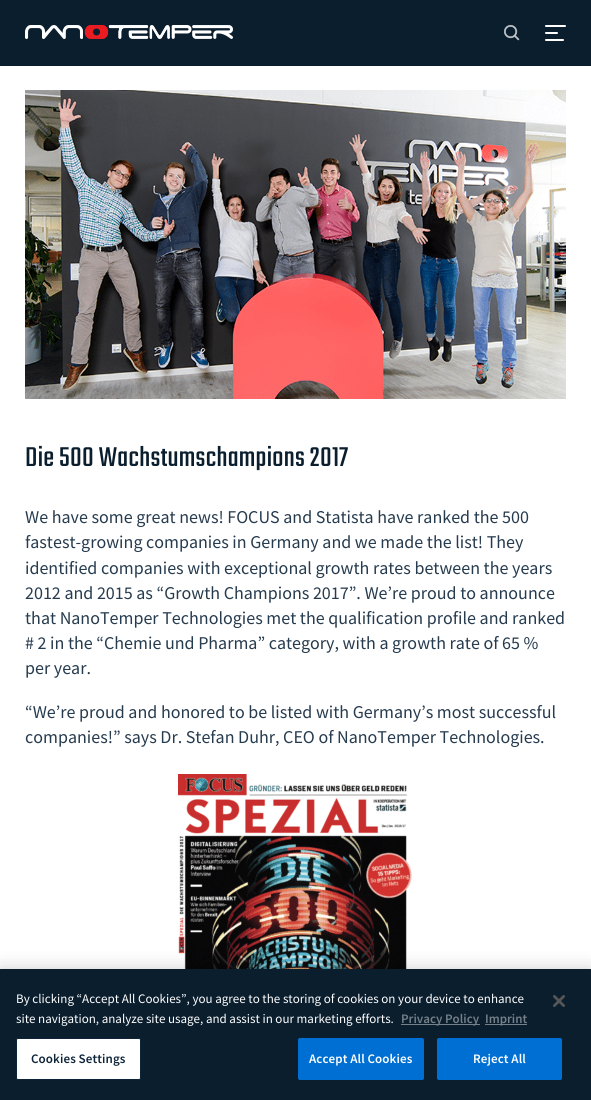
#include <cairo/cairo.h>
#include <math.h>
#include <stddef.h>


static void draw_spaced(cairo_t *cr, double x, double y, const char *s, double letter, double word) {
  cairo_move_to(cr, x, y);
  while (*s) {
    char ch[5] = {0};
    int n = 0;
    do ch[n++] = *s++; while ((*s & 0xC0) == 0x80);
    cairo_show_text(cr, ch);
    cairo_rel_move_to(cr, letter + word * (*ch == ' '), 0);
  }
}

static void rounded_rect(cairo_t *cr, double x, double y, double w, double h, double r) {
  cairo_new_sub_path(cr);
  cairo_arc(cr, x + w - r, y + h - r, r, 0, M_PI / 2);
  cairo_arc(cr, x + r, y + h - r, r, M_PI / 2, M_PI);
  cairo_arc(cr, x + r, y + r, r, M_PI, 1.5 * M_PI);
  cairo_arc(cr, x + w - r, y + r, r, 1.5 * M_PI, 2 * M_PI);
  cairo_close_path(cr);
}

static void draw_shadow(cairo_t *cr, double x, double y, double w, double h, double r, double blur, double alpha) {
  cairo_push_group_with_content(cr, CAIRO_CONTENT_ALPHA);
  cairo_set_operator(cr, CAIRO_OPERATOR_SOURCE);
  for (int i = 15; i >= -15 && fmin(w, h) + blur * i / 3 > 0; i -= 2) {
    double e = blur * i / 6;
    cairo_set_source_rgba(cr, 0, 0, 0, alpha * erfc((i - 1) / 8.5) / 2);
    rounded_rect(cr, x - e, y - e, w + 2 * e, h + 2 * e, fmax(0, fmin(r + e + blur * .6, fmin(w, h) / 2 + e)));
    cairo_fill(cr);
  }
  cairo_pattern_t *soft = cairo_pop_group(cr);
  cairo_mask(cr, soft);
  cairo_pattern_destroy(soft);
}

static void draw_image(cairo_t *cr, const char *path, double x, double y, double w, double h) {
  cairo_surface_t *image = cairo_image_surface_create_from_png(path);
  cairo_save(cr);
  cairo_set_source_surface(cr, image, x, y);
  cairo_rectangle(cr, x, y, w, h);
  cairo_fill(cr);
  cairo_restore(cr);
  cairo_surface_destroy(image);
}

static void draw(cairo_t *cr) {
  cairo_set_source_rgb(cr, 1, 1, 1);
  cairo_paint(cr);
  cairo_set_source_rgb(cr, 11 / 255.0, 30 / 255.0, 46 / 255.0);
  cairo_rectangle(cr, 0, 0, 591, 66);
  cairo_fill(cr);
  draw_image(cr, "images/1.png", 25, 25, 208, 14);
  draw_image(cr, "images/2.png", 503, 24, 17, 17);
  cairo_set_source_rgb(cr, 1, 1, 1);
  rounded_rect(cr, 545, 25, 21, 2, 1);
  cairo_fill(cr);
  rounded_rect(cr, 545, 32, 13, 2, 1);
  cairo_fill(cr);
  rounded_rect(cr, 545, 39, 19, 2, 1);
  cairo_fill(cr);
  draw_image(cr, "images/3.png", 25, 90, 541, 309);
  draw_image(cr, "images/4.png", 178, 774, 236, 195);
  cairo_set_source_rgb(cr, 0, 0, 0);
  draw_shadow(cr, 0, 969, 591, 131, 0, 9, 0.2);
  cairo_set_source_rgb(cr, 11 / 255.0, 30 / 255.0, 46 / 255.0);
  cairo_rectangle(cr, 0, 969, 591, 131);
  cairo_fill(cr);
  cairo_set_source_rgb(cr, 118 / 255.0, 128 / 255.0, 137 / 255.0);
  cairo_rectangle(cr, 401, 1024, 79, 1);
  cairo_fill(cr);
  cairo_rectangle(cr, 485, 1024, 42, 1);
  cairo_fill(cr);
  cairo_set_source_rgb(cr, 1, 1, 1);
  rounded_rect(cr, 16.5, 1038.5, 124, 41, 1.5);
  cairo_fill_preserve(cr);
  cairo_set_source_rgb(cr, 14 / 255.0, 37 / 255.0, 57 / 255.0);
  cairo_set_line_width(cr, 1);
  cairo_stroke(cr);
  cairo_set_source_rgb(cr, 0, 111 / 255.0, 211 / 255.0);
  rounded_rect(cr, 298.5, 1038.5, 125, 41, 1.5);
  cairo_fill_preserve(cr);
  cairo_stroke(cr);
  rounded_rect(cr, 437.5, 1038.5, 124, 41, 1.5);
  cairo_fill_preserve(cr);
  cairo_stroke(cr);
  draw_image(cr, "images/5.png", 553, 995, 12, 12);
  cairo_select_font_face(cr, "Teko", CAIRO_FONT_SLANT_NORMAL, CAIRO_FONT_WEIGHT_NORMAL);
  cairo_set_font_size(cr, 30);
  cairo_set_source_rgb(cr, 11 / 255.0, 30 / 255.0, 46 / 255.0);
  draw_spaced(cr, 25, 466, "Die 500 Wachstumschampions 2017", 0.3, 0);
  cairo_select_font_face(cr, "Source Sans Pro", CAIRO_FONT_SLANT_NORMAL, CAIRO_FONT_WEIGHT_NORMAL);
  cairo_set_font_size(cr, 18);
  cairo_set_source_rgb(cr, 38 / 255.0, 59 / 255.0, 78 / 255.0);
  cairo_move_to(cr, 25, 523);
  cairo_show_text(cr, "We have some great news! FOCUS and Statista have ranked the 500");
  cairo_move_to(cr, 25, 548);
  cairo_show_text(cr, "fastest-growing companies in Germany and we made the list! They");
  cairo_move_to(cr, 25, 574);
  cairo_show_text(cr, "identified companies with exceptional growth rates between the years");
  cairo_move_to(cr, 25, 599);
  cairo_show_text(cr, "2012 and 2015 as “Growth Champions 2017”. We’re proud to announce");
  cairo_move_to(cr, 25, 624);
  cairo_show_text(cr, "that NanoTemper Technologies met the qualification profile and ranked");
  cairo_move_to(cr, 25, 649);
  cairo_show_text(cr, "# 2 in the “Chemie und Pharma” category, with a growth rate of 65 %");
  cairo_move_to(cr, 25, 674);
  cairo_show_text(cr, "per year.");
  cairo_move_to(cr, 25, 718);
  cairo_show_text(cr, "“We’re proud and honored to be listed with Germany’s most successful");
  cairo_move_to(cr, 25, 743);
  cairo_show_text(cr, "companies!” says Dr. Stefan Duhr, CEO of NanoTemper Technologies.");
  cairo_set_font_size(cr, 13);
  cairo_set_source_rgb(cr, 1, 1, 1);
  cairo_move_to(cr, 16, 1003);
  cairo_show_text(cr, "By clicking “Accept All Cookies”, you agree to the storing of cookies on your device to enhance");
  cairo_move_to(cr, 16, 1023);
  cairo_show_text(cr, "site navigation, analyze site usage, and assist in our marketing efforts.");
  cairo_select_font_face(cr, "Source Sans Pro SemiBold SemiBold", CAIRO_FONT_SLANT_NORMAL, CAIRO_FONT_WEIGHT_NORMAL);
  cairo_set_source_rgb(cr, 118 / 255.0, 128 / 255.0, 137 / 255.0);
  cairo_move_to(cr, 401, 1023);
  cairo_show_text(cr, "Privacy Policy");
  cairo_move_to(cr, 485, 1023);
  cairo_show_text(cr, "Imprint");
  cairo_set_source_rgb(cr, 14 / 255.0, 37 / 255.0, 57 / 255.0);
  draw_spaced(cr, 31, 1063, "Cookies Settings", 0.1, 0);
  cairo_set_source_rgb(cr, 1, 1, 1);
  draw_spaced(cr, 309, 1063, "Accept All Cookies", 0.1, 0);
  draw_spaced(cr, 473, 1063, "Reject All", 0.1, 0);
}

int main(void) {
  cairo_surface_t *surface = cairo_image_surface_create(CAIRO_FORMAT_RGB24, 591, 1100);
  cairo_t *cr = cairo_create(surface);
  cairo_font_options_t *options = cairo_font_options_create();
  cairo_font_options_set_hint_metrics(options, CAIRO_HINT_METRICS_OFF);
  cairo_font_options_set_hint_style(options, CAIRO_HINT_STYLE_NONE);
  cairo_set_font_options(cr, options);
  cairo_set_miter_limit(cr, 4);
  draw(cr);
  cairo_surface_write_to_png(surface, "out.png");
  cairo_font_options_destroy(options);
  cairo_destroy(cr);
  cairo_surface_destroy(surface);
  return 0;
}
